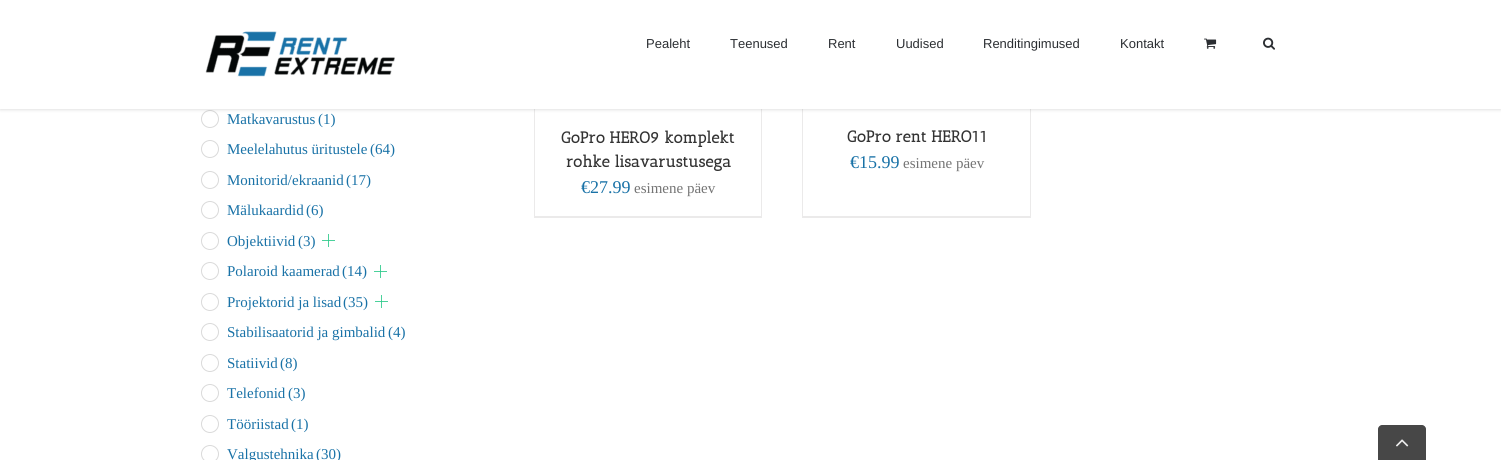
#include <cairo/cairo.h>
#include <math.h>
#include <stddef.h>


static void rounded_rect(cairo_t *cr, double x, double y, double w, double h, double r) {
  cairo_new_sub_path(cr);
  cairo_arc(cr, x + w - r, y + h - r, r, 0, M_PI / 2);
  cairo_arc(cr, x + r, y + h - r, r, M_PI / 2, M_PI);
  cairo_arc(cr, x + r, y + r, r, M_PI, 1.5 * M_PI);
  cairo_arc(cr, x + w - r, y + r, r, 1.5 * M_PI, 2 * M_PI);
  cairo_close_path(cr);
}

static void draw_shadow(cairo_t *cr, double x, double y, double w, double h, double r, double blur, double alpha) {
  cairo_push_group_with_content(cr, CAIRO_CONTENT_ALPHA);
  cairo_set_operator(cr, CAIRO_OPERATOR_SOURCE);
  for (int i = 15; i >= -15 && fmin(w, h) + blur * i / 3 > 0; i -= 2) {
    double e = blur * i / 6;
    cairo_set_source_rgba(cr, 0, 0, 0, alpha * erfc((i - 1) / 8.5) / 2);
    rounded_rect(cr, x - e, y - e, w + 2 * e, h + 2 * e, fmax(0, fmin(r + e + blur * .6, fmin(w, h) / 2 + e)));
    cairo_fill(cr);
  }
  cairo_pattern_t *soft = cairo_pop_group(cr);
  cairo_mask(cr, soft);
  cairo_pattern_destroy(soft);
}

static void draw_image(cairo_t *cr, const char *path, double x, double y, double w, double h) {
  cairo_surface_t *image = cairo_image_surface_create_from_png(path);
  cairo_save(cr);
  cairo_set_source_surface(cr, image, x, y);
  cairo_rectangle(cr, x, y, w, h);
  cairo_fill(cr);
  cairo_restore(cr);
  cairo_surface_destroy(image);
}

static void draw(cairo_t *cr) {
  cairo_set_source_rgb(cr, 1, 1, 1);
  cairo_paint(cr);
  draw_image(cr, "images/4.png", 201, 110, 18, 18);
  cairo_set_source_rgb(cr, 235 / 255.0, 234 / 255.0, 234 / 255.0);
  cairo_rectangle(cr, 761, 109, 1, 109);
  cairo_fill(cr);
  cairo_rectangle(cr, 534, 216, 228, 2);
  cairo_fill(cr);
  cairo_rectangle(cr, 534, 109, 1, 109);
  cairo_fill(cr);
  cairo_rectangle(cr, 1030, 109, 1, 109);
  cairo_fill(cr);
  cairo_rectangle(cr, 802, 216, 229, 2);
  cairo_fill(cr);
  cairo_rectangle(cr, 802, 109, 1, 109);
  cairo_fill(cr);
  cairo_set_source_rgb(cr, 0, 0, 0);
  draw_shadow(cr, 0, 1, 1501, 109, 0, 1.5, 0.12);
  cairo_set_source_rgb(cr, 1, 1, 1);
  cairo_rectangle(cr, 0, 0, 1501, 109);
  cairo_fill(cr);
  draw_image(cr, "images/1.png", 205, 31, 190, 46);
  draw_image(cr, "images/2.png", 1204, 38, 13, 11);
  draw_image(cr, "images/3.png", 1263, 37, 12, 13);
  draw_image(cr, "images/4.png", 201, 140, 18, 18);
  draw_image(cr, "images/4.png", 201, 171, 18, 18);
  draw_image(cr, "images/4.png", 201, 201, 18, 18);
  draw_image(cr, "images/4.png", 201, 232, 18, 18);
  draw_image(cr, "images/5.png", 322, 234, 13, 13);
  draw_image(cr, "images/4.png", 201, 262, 18, 18);
  draw_image(cr, "images/5.png", 374, 265, 13, 13);
  draw_image(cr, "images/4.png", 201, 293, 18, 18);
  draw_image(cr, "images/5.png", 375, 295, 13, 13);
  draw_image(cr, "images/4.png", 201, 323, 18, 18);
  draw_image(cr, "images/4.png", 201, 354, 18, 18);
  draw_image(cr, "images/4.png", 201, 384, 18, 18);
  draw_image(cr, "images/4.png", 201, 415, 18, 18);
  draw_image(cr, "images/6.png", 201, 445, 18, 15);
  cairo_set_source_rgb(cr, 71 / 255.0, 71 / 255.0, 71 / 255.0);
  cairo_new_path(cr);
  cairo_move_to(cr, 1382, 425);
  cairo_line_to(cr, 1422, 425);
  cairo_curve_to(cr, 1424, 425, 1426, 427, 1426, 429);
  cairo_line_to(cr, 1426, 460);
  cairo_line_to(cr, 1378, 460);
  cairo_line_to(cr, 1378, 429);
  cairo_curve_to(cr, 1378, 427, 1380, 425, 1382, 425);
  cairo_close_path(cr);
  cairo_fill(cr);
  draw_image(cr, "images/7.png", 1396, 439, 13, 8);
  cairo_select_font_face(cr, "Liberation Sans", CAIRO_FONT_SLANT_NORMAL, CAIRO_FONT_WEIGHT_NORMAL);
  cairo_set_font_size(cr, 13);
  cairo_set_source_rgb(cr, 43 / 255.0, 46 / 255.0, 50 / 255.0);
  cairo_move_to(cr, 646, 48);
  cairo_show_text(cr, "Pealeht");
  cairo_move_to(cr, 730, 48);
  cairo_show_text(cr, "Teenused");
  cairo_move_to(cr, 828, 48);
  cairo_show_text(cr, "Rent");
  cairo_move_to(cr, 896, 48);
  cairo_show_text(cr, "Uudised");
  cairo_move_to(cr, 983, 48);
  cairo_show_text(cr, "Renditingimused");
  cairo_move_to(cr, 1120, 48);
  cairo_show_text(cr, "Kontakt");
  cairo_select_font_face(cr, "Liberation Serif", CAIRO_FONT_SLANT_NORMAL, CAIRO_FONT_WEIGHT_NORMAL);
  cairo_set_font_size(cr, 15);
  cairo_set_source_rgb(cr, 25 / 255.0, 114 / 255.0, 167 / 255.0);
  cairo_move_to(cr, 227, 124);
  cairo_show_text(cr, "Matkavarustus");
  cairo_move_to(cr, 318, 124);
  cairo_show_text(cr, "(1)");
  cairo_move_to(cr, 227, 154);
  cairo_show_text(cr, "Meelelahutus üritustele");
  cairo_move_to(cr, 370, 154);
  cairo_show_text(cr, "(64)");
  cairo_move_to(cr, 227, 185);
  cairo_show_text(cr, "Monitorid/ekraanid");
  cairo_move_to(cr, 346, 185);
  cairo_show_text(cr, "(17)");
  cairo_move_to(cr, 227, 215);
  cairo_show_text(cr, "Mälukaardid");
  cairo_move_to(cr, 306, 215);
  cairo_show_text(cr, "(6)");
  cairo_move_to(cr, 227, 246);
  cairo_show_text(cr, "Objektiivid");
  cairo_move_to(cr, 298, 246);
  cairo_show_text(cr, "(3)");
  cairo_move_to(cr, 227, 276);
  cairo_show_text(cr, "Polaroid kaamerad");
  cairo_move_to(cr, 342, 276);
  cairo_show_text(cr, "(14)");
  cairo_move_to(cr, 227, 307);
  cairo_show_text(cr, "Projektorid ja lisad");
  cairo_move_to(cr, 343, 307);
  cairo_show_text(cr, "(35)");
  cairo_move_to(cr, 227, 337);
  cairo_show_text(cr, "Stabilisaatorid ja gimbalid");
  cairo_move_to(cr, 388, 337);
  cairo_show_text(cr, "(4)");
  cairo_move_to(cr, 227, 368);
  cairo_show_text(cr, "Statiivid");
  cairo_move_to(cr, 280, 368);
  cairo_show_text(cr, "(8)");
  cairo_move_to(cr, 227, 398);
  cairo_show_text(cr, "Telefonid");
  cairo_move_to(cr, 288, 398);
  cairo_show_text(cr, "(3)");
  cairo_move_to(cr, 227, 429);
  cairo_show_text(cr, "Tööriistad");
  cairo_move_to(cr, 291, 429);
  cairo_show_text(cr, "(1)");
  cairo_move_to(cr, 227, 459);
  cairo_show_text(cr, "Valgustehnika");
  cairo_move_to(cr, 316, 459);
  cairo_show_text(cr, "(30)");
  cairo_select_font_face(cr, "Antic Slab", CAIRO_FONT_SLANT_NORMAL, CAIRO_FONT_WEIGHT_BOLD);
  cairo_set_font_size(cr, 16);
  cairo_set_source_rgb(cr, 51 / 255.0, 51 / 255.0, 51 / 255.0);
  cairo_move_to(cr, 561, 143);
  cairo_show_text(cr, "GoPro HERO9 komplekt");
  cairo_move_to(cr, 566, 167);
  cairo_show_text(cr, "rohke lisavarustusega");
  cairo_select_font_face(cr, "Liberation Serif", CAIRO_FONT_SLANT_NORMAL, CAIRO_FONT_WEIGHT_NORMAL);
  cairo_set_font_size(cr, 18);
  cairo_set_source_rgb(cr, 25 / 255.0, 114 / 255.0, 167 / 255.0);
  cairo_move_to(cr, 581, 193);
  cairo_show_text(cr, "€27.99");
  cairo_set_font_size(cr, 15);
  cairo_set_source_rgb(cr, 116 / 255.0, 116 / 255.0, 116 / 255.0);
  cairo_move_to(cr, 634, 193);
  cairo_show_text(cr, "esimene päev");
  cairo_select_font_face(cr, "Antic Slab", CAIRO_FONT_SLANT_NORMAL, CAIRO_FONT_WEIGHT_BOLD);
  cairo_set_font_size(cr, 16);
  cairo_set_source_rgb(cr, 51 / 255.0, 51 / 255.0, 51 / 255.0);
  cairo_move_to(cr, 847, 142);
  cairo_show_text(cr, "GoPro rent HERO11");
  cairo_select_font_face(cr, "Liberation Serif", CAIRO_FONT_SLANT_NORMAL, CAIRO_FONT_WEIGHT_NORMAL);
  cairo_set_font_size(cr, 18);
  cairo_set_source_rgb(cr, 25 / 255.0, 114 / 255.0, 167 / 255.0);
  cairo_move_to(cr, 850, 168);
  cairo_show_text(cr, "€15.99");
  cairo_set_font_size(cr, 15);
  cairo_set_source_rgb(cr, 116 / 255.0, 116 / 255.0, 116 / 255.0);
  cairo_move_to(cr, 903, 168);
  cairo_show_text(cr, "esimene päev");
}

int main(void) {
  cairo_surface_t *surface = cairo_image_surface_create(CAIRO_FORMAT_RGB24, 1501, 460);
  cairo_t *cr = cairo_create(surface);
  cairo_font_options_t *options = cairo_font_options_create();
  cairo_font_options_set_hint_metrics(options, CAIRO_HINT_METRICS_OFF);
  cairo_font_options_set_hint_style(options, CAIRO_HINT_STYLE_NONE);
  cairo_set_font_options(cr, options);
  cairo_set_miter_limit(cr, 4);
  draw(cr);
  cairo_surface_write_to_png(surface, "out.png");
  cairo_font_options_destroy(options);
  cairo_destroy(cr);
  cairo_surface_destroy(surface);
  return 0;
}
